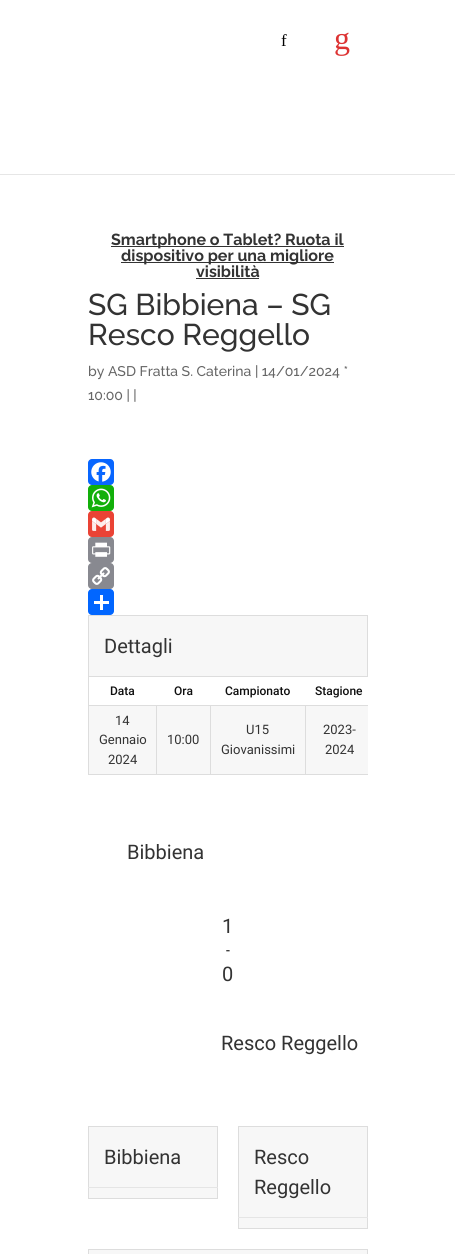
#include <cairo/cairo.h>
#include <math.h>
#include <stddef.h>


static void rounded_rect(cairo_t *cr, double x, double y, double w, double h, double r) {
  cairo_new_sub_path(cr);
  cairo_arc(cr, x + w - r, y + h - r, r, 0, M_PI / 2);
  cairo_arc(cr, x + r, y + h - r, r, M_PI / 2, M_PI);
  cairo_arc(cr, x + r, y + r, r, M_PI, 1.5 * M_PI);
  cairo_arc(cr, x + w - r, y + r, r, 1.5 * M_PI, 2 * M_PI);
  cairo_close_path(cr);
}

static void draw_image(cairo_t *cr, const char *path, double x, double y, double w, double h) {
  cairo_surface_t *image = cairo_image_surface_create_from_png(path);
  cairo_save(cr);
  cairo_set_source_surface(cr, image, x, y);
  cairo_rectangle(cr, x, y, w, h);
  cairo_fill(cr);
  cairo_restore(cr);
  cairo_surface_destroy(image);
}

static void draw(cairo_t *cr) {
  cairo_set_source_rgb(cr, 1, 1, 1);
  cairo_paint(cr);
  cairo_set_source_rgb(cr, 230 / 255.0, 230 / 255.0, 230 / 255.0);
  cairo_rectangle(cr, 0, 174, 455, 1);
  cairo_fill(cr);
  cairo_set_source_rgb(cr, 51 / 255.0, 51 / 255.0, 51 / 255.0);
  cairo_rectangle(cr, 111, 246, 233, 1);
  cairo_fill(cr);
  cairo_rectangle(cr, 121, 262, 213, 1);
  cairo_fill(cr);
  cairo_rectangle(cr, 196, 278, 63, 1);
  cairo_fill(cr);
  cairo_set_source_rgb(cr, 8 / 255.0, 102 / 255.0, 1);
  rounded_rect(cr, 88, 459, 26, 26, 4);
  cairo_fill(cr);
  draw_image(cr, "images/1.png", 91, 462, 20, 20);
  cairo_set_source_rgb(cr, 18 / 255.0, 175 / 255.0, 10 / 255.0);
  rounded_rect(cr, 88, 485, 26, 26, 4);
  cairo_fill(cr);
  draw_image(cr, "images/2.png", 91, 488, 20, 20);
  cairo_set_source_rgb(cr, 234 / 255.0, 67 / 255.0, 53 / 255.0);
  rounded_rect(cr, 88, 511, 26, 26, 4);
  cairo_fill(cr);
  draw_image(cr, "images/3.png", 92, 517, 18, 14);
  cairo_set_source_rgb(cr, 136 / 255.0, 137 / 255.0, 144 / 255.0);
  rounded_rect(cr, 88, 537, 26, 26, 4);
  cairo_fill(cr);
  draw_image(cr, "images/4.png", 92, 542, 19, 15);
  rounded_rect(cr, 88, 563, 26, 26, 4);
  cairo_fill(cr);
  draw_image(cr, "images/5.png", 92, 567, 18, 18);
  cairo_set_source_rgb(cr, 1 / 255.0, 102 / 255.0, 1);
  rounded_rect(cr, 88, 589, 26, 26, 4);
  cairo_fill(cr);
  cairo_set_source_rgb(cr, 1, 1, 1);
  cairo_rectangle(cr, 100, 595, 3, 15);
  cairo_fill(cr);
  cairo_rectangle(cr, 94, 601, 15, 3);
  cairo_fill(cr);
  cairo_set_source_rgb(cr, 247 / 255.0, 247 / 255.0, 247 / 255.0);
  cairo_rectangle(cr, 89, 616, 278, 60);
  cairo_fill(cr);
  cairo_set_source_rgb(cr, 221 / 255.0, 221 / 255.0, 221 / 255.0);
  cairo_rectangle(cr, 88, 615, 280, 1);
  cairo_fill(cr);
  cairo_rectangle(cr, 367, 615, 1, 61);
  cairo_fill(cr);
  cairo_rectangle(cr, 88, 615, 1, 61);
  cairo_fill(cr);
  cairo_set_source_rgb(cr, 247 / 255.0, 247 / 255.0, 247 / 255.0);
  cairo_rectangle(cr, 89, 706, 279, 68);
  cairo_fill(cr);
  cairo_set_source_rgb(cr, 221 / 255.0, 221 / 255.0, 221 / 255.0);
  cairo_rectangle(cr, 88, 676, 280, 1);
  cairo_fill(cr);
  cairo_rectangle(cr, 88, 774, 280, 1);
  cairo_fill(cr);
  cairo_rectangle(cr, 88, 676, 1, 99);
  cairo_fill(cr);
  cairo_rectangle(cr, 305, 705, 63, 1);
  cairo_fill(cr);
  cairo_rectangle(cr, 305, 705, 1, 70);
  cairo_fill(cr);
  cairo_rectangle(cr, 210, 705, 96, 1);
  cairo_fill(cr);
  cairo_rectangle(cr, 210, 705, 1, 70);
  cairo_fill(cr);
  cairo_rectangle(cr, 156, 705, 55, 1);
  cairo_fill(cr);
  cairo_rectangle(cr, 156, 705, 1, 70);
  cairo_fill(cr);
  cairo_rectangle(cr, 88, 705, 69, 1);
  cairo_fill(cr);
  cairo_set_source_rgb(cr, 247 / 255.0, 247 / 255.0, 247 / 255.0);
  cairo_rectangle(cr, 89, 1127, 128, 60);
  cairo_fill(cr);
  cairo_set_source_rgb(cr, 221 / 255.0, 221 / 255.0, 221 / 255.0);
  cairo_rectangle(cr, 88, 1126, 130, 1);
  cairo_fill(cr);
  cairo_rectangle(cr, 217, 1126, 1, 73);
  cairo_fill(cr);
  cairo_rectangle(cr, 88, 1126, 1, 61);
  cairo_fill(cr);
  cairo_set_source_rgb(cr, 247 / 255.0, 247 / 255.0, 247 / 255.0);
  cairo_rectangle(cr, 89, 1188, 128, 10);
  cairo_fill(cr);
  cairo_set_source_rgb(cr, 221 / 255.0, 221 / 255.0, 221 / 255.0);
  cairo_rectangle(cr, 88, 1198, 130, 1);
  cairo_fill(cr);
  cairo_rectangle(cr, 88, 1187, 1, 12);
  cairo_fill(cr);
  cairo_set_source_rgb(cr, 229 / 255.0, 229 / 255.0, 229 / 255.0);
  cairo_rectangle(cr, 88, 1187, 130, 1);
  cairo_fill(cr);
  cairo_set_source_rgb(cr, 247 / 255.0, 247 / 255.0, 247 / 255.0);
  cairo_rectangle(cr, 239, 1127, 128, 90);
  cairo_fill(cr);
  cairo_set_source_rgb(cr, 221 / 255.0, 221 / 255.0, 221 / 255.0);
  cairo_rectangle(cr, 238, 1126, 130, 1);
  cairo_fill(cr);
  cairo_rectangle(cr, 367, 1126, 1, 103);
  cairo_fill(cr);
  cairo_rectangle(cr, 238, 1126, 1, 91);
  cairo_fill(cr);
  cairo_set_source_rgb(cr, 247 / 255.0, 247 / 255.0, 247 / 255.0);
  cairo_rectangle(cr, 239, 1218, 128, 10);
  cairo_fill(cr);
  cairo_set_source_rgb(cr, 221 / 255.0, 221 / 255.0, 221 / 255.0);
  cairo_rectangle(cr, 238, 1228, 130, 1);
  cairo_fill(cr);
  cairo_rectangle(cr, 238, 1217, 1, 12);
  cairo_fill(cr);
  cairo_set_source_rgb(cr, 229 / 255.0, 229 / 255.0, 229 / 255.0);
  cairo_rectangle(cr, 238, 1217, 130, 1);
  cairo_fill(cr);
  cairo_set_source_rgb(cr, 247 / 255.0, 247 / 255.0, 247 / 255.0);
  cairo_rectangle(cr, 88, 1250, 280, 4);
  cairo_fill(cr);
  cairo_set_source_rgb(cr, 221 / 255.0, 221 / 255.0, 221 / 255.0);
  cairo_rectangle(cr, 88, 1249, 280, 1);
  cairo_fill(cr);
  cairo_rectangle(cr, 367, 1249, 1, 5);
  cairo_fill(cr);
  cairo_rectangle(cr, 88, 1249, 1, 5);
  cairo_fill(cr);
  cairo_select_font_face(cr, "Liberation Serif", CAIRO_FONT_SLANT_NORMAL, CAIRO_FONT_WEIGHT_NORMAL);
  cairo_set_font_size(cr, 17);
  cairo_set_source_rgb(cr, 0, 0, 0);
  cairo_move_to(cr, 281, 46);
  cairo_show_text(cr, "f");
  cairo_set_font_size(cr, 32);
  cairo_set_source_rgb(cr, 221 / 255.0, 51 / 255.0, 51 / 255.0);
  cairo_move_to(cr, 334, 49);
  cairo_show_text(cr, "g");
  cairo_select_font_face(cr, "Raleway", CAIRO_FONT_SLANT_NORMAL, CAIRO_FONT_WEIGHT_BOLD);
  cairo_set_font_size(cr, 16);
  cairo_set_source_rgb(cr, 51 / 255.0, 51 / 255.0, 51 / 255.0);
  cairo_move_to(cr, 111, 245);
  cairo_show_text(cr, "Smartphone o Tablet? Ruota il");
  cairo_move_to(cr, 121, 261);
  cairo_show_text(cr, "dispositivo per una migliore");
  cairo_move_to(cr, 196, 277);
  cairo_show_text(cr, "visibilità");
  cairo_select_font_face(cr, "Raleway Medium", CAIRO_FONT_SLANT_NORMAL, CAIRO_FONT_WEIGHT_NORMAL);
  cairo_set_font_size(cr, 30);
  cairo_move_to(cr, 88, 315);
  cairo_show_text(cr, "SG Bibbiena – SG");
  cairo_move_to(cr, 88, 345);
  cairo_show_text(cr, "Resco Reggello");
  cairo_set_font_size(cr, 14);
  cairo_set_source_rgb(cr, 102 / 255.0, 102 / 255.0, 102 / 255.0);
  cairo_move_to(cr, 88, 376);
  cairo_show_text(cr, "by ASD Fratta S. Caterina | 14/01/2024 *");
  cairo_move_to(cr, 88, 400);
  cairo_show_text(cr, "10:00 | |");
  cairo_select_font_face(cr, "Roboto", CAIRO_FONT_SLANT_NORMAL, CAIRO_FONT_WEIGHT_NORMAL);
  cairo_set_font_size(cr, 20);
  cairo_set_source_rgb(cr, 51 / 255.0, 51 / 255.0, 51 / 255.0);
  cairo_move_to(cr, 104, 653);
  cairo_show_text(cr, "Dettagli");
  cairo_select_font_face(cr, "Roboto Medium", CAIRO_FONT_SLANT_NORMAL, CAIRO_FONT_WEIGHT_NORMAL);
  cairo_set_font_size(cr, 12);
  cairo_set_source_rgb(cr, 15 / 255.0, 15 / 255.0, 15 / 255.0);
  cairo_move_to(cr, 110, 695);
  cairo_show_text(cr, "Data");
  cairo_move_to(cr, 174, 695);
  cairo_show_text(cr, "Ora");
  cairo_move_to(cr, 225, 695);
  cairo_show_text(cr, "Campionato");
  cairo_move_to(cr, 315, 695);
  cairo_show_text(cr, "Stagione");
  cairo_select_font_face(cr, "Roboto", CAIRO_FONT_SLANT_NORMAL, CAIRO_FONT_WEIGHT_NORMAL);
  cairo_set_font_size(cr, 13);
  cairo_set_source_rgb(cr, 51 / 255.0, 51 / 255.0, 51 / 255.0);
  cairo_move_to(cr, 115, 725);
  cairo_show_text(cr, "14");
  cairo_move_to(cr, 99, 744);
  cairo_show_text(cr, "Gennaio");
  cairo_move_to(cr, 108, 764);
  cairo_show_text(cr, "2024");
  cairo_move_to(cr, 167, 744);
  cairo_show_text(cr, "10:00");
  cairo_move_to(cr, 246, 734);
  cairo_show_text(cr, "U15");
  cairo_move_to(cr, 221, 754);
  cairo_show_text(cr, "Giovanissimi");
  cairo_move_to(cr, 323, 734);
  cairo_show_text(cr, "2023-");
  cairo_move_to(cr, 325, 754);
  cairo_show_text(cr, "2024");
  cairo_set_font_size(cr, 20);
  cairo_move_to(cr, 127, 859);
  cairo_show_text(cr, "Bibbiena");
  cairo_move_to(cr, 222, 933);
  cairo_show_text(cr, "1");
  cairo_set_font_size(cr, 14);
  cairo_set_source_rgb(cr, 0, 0, 0);
  cairo_move_to(cr, 226, 955);
  cairo_show_text(cr, "-");
  cairo_set_font_size(cr, 20);
  cairo_set_source_rgb(cr, 51 / 255.0, 51 / 255.0, 51 / 255.0);
  cairo_move_to(cr, 222, 981);
  cairo_show_text(cr, "0");
  cairo_move_to(cr, 221, 1050);
  cairo_show_text(cr, "Resco Reggello");
  cairo_move_to(cr, 104, 1164);
  cairo_show_text(cr, "Bibbiena");
  cairo_move_to(cr, 254, 1164);
  cairo_show_text(cr, "Resco");
  cairo_move_to(cr, 254, 1194);
  cairo_show_text(cr, "Reggello");
}

int main(void) {
  cairo_surface_t *surface = cairo_image_surface_create(CAIRO_FORMAT_RGB24, 455, 1254);
  cairo_t *cr = cairo_create(surface);
  cairo_font_options_t *options = cairo_font_options_create();
  cairo_font_options_set_hint_metrics(options, CAIRO_HINT_METRICS_OFF);
  cairo_font_options_set_hint_style(options, CAIRO_HINT_STYLE_NONE);
  cairo_set_font_options(cr, options);
  cairo_set_miter_limit(cr, 4);
  draw(cr);
  cairo_surface_write_to_png(surface, "out.png");
  cairo_font_options_destroy(options);
  cairo_destroy(cr);
  cairo_surface_destroy(surface);
  return 0;
}
